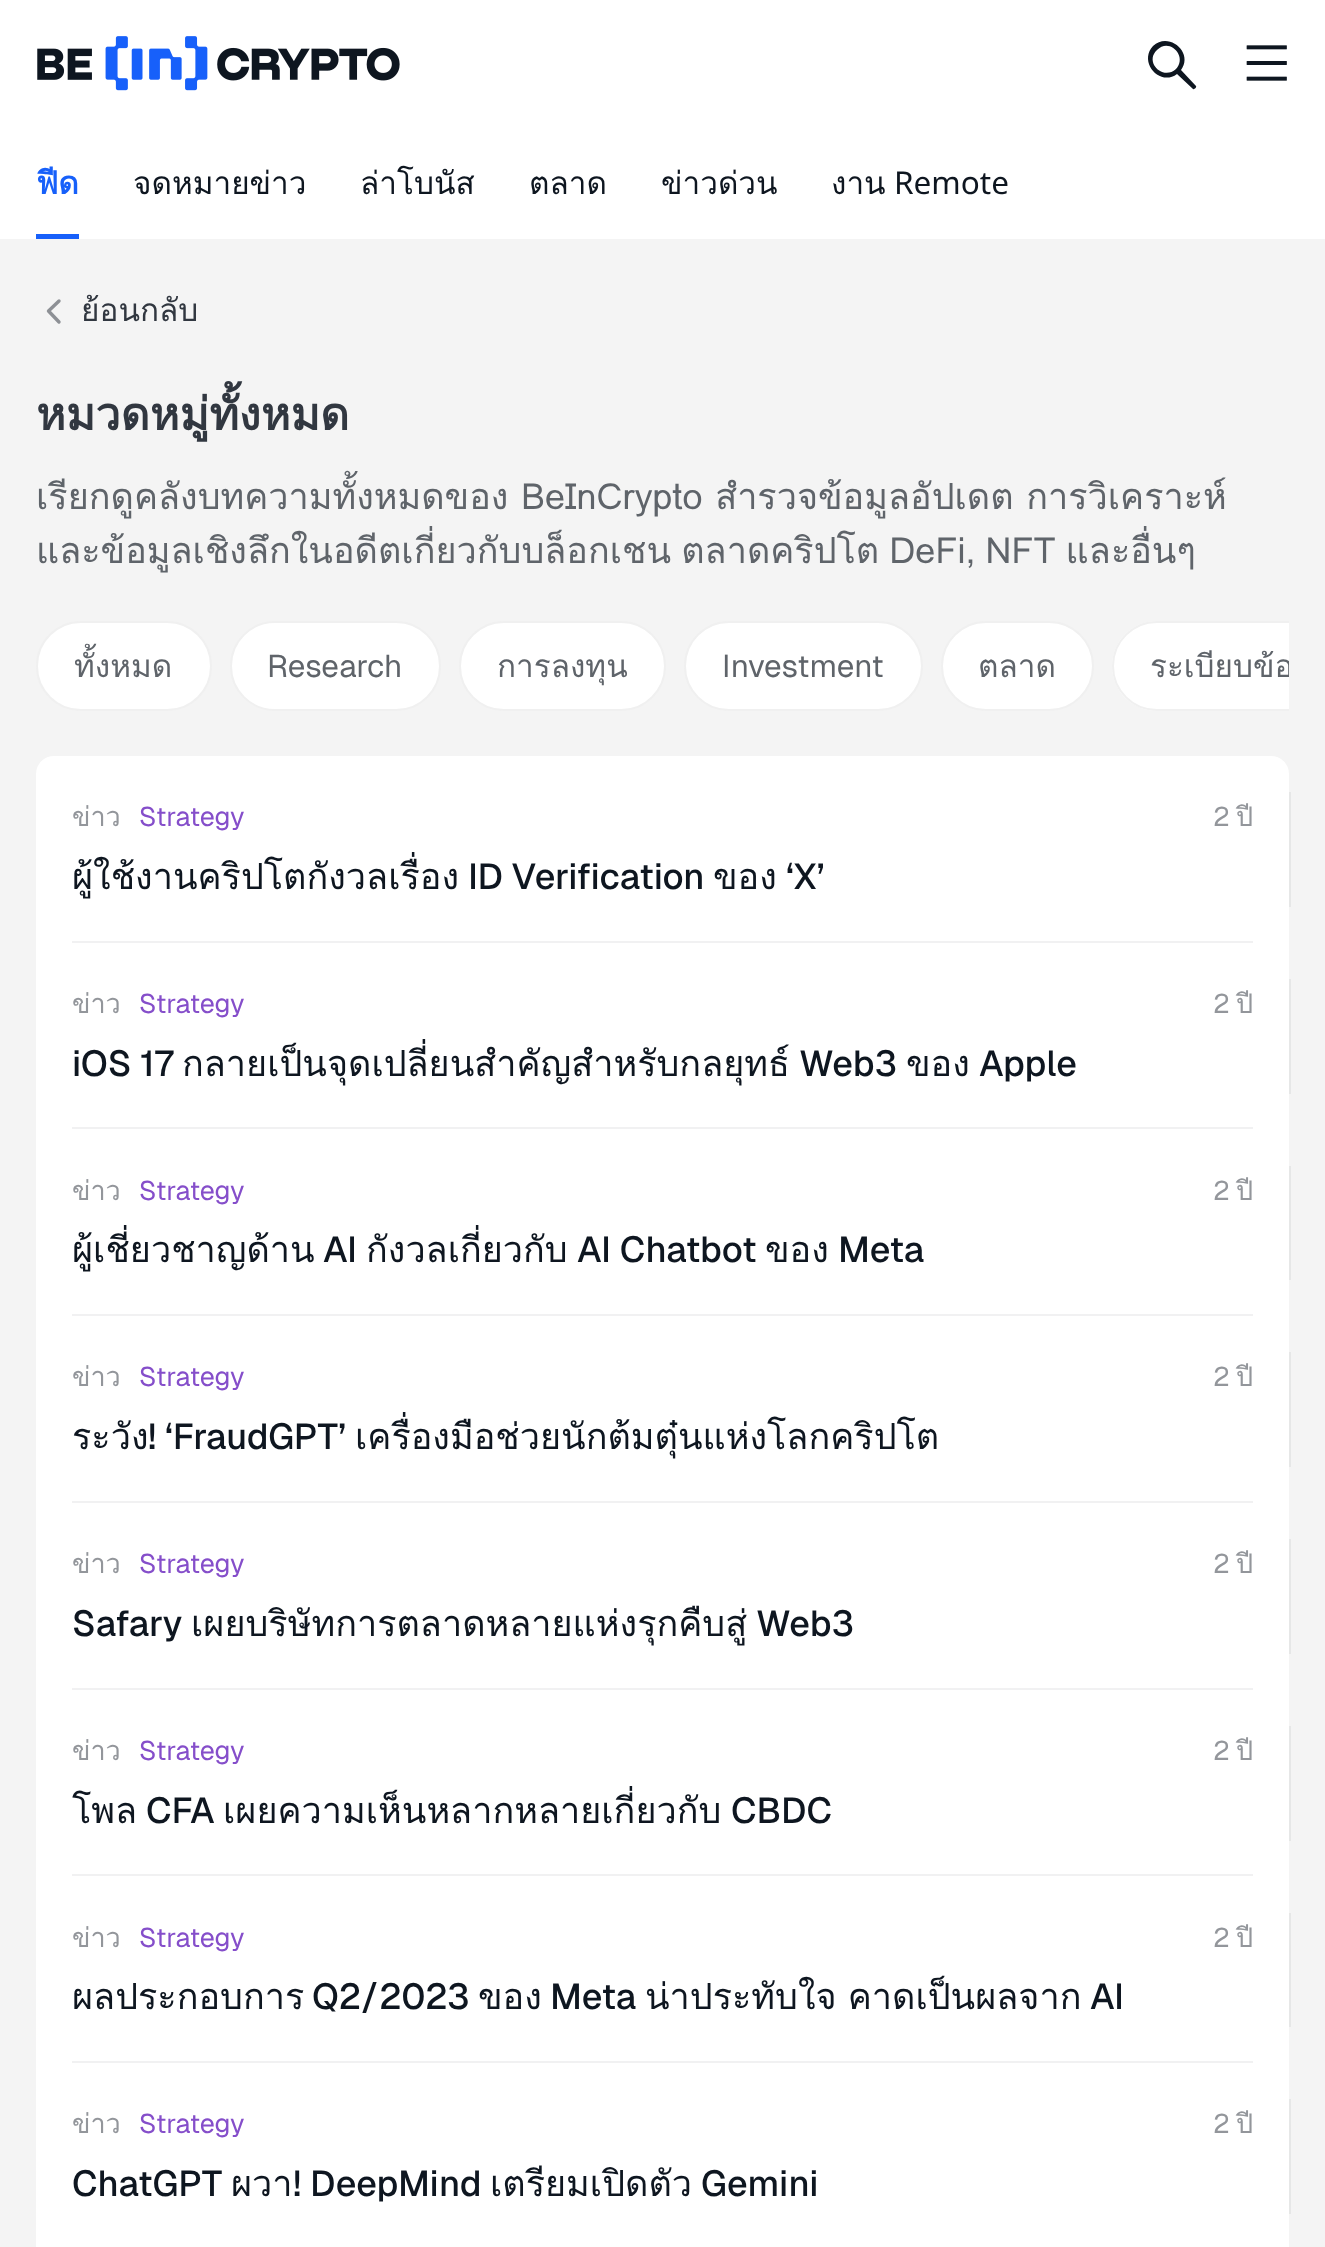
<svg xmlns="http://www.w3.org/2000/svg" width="1325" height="2247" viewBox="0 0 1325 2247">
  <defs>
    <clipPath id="clip1"><rect x="36" y="621" width="1253" height="90"/></clipPath>
    <clipPath id="clip2"><rect x="72" y="851" width="1181" height="54"/></clipPath>
    <clipPath id="clip3"><rect x="72" y="1224" width="1181" height="54"/></clipPath>
  </defs>
  <rect width="100%" height="100%" fill="rgb(244,244,244)"/>
  <rect x="0" y="0" width="1325" height="239" fill="rgb(255,255,255)"/>
  <image x="37" y="36" width="363" height="55" href="pic1.png"/>
  <path d="M1196 86L1181 70C1194 53 1169 31 1153 46C1138 62 1160 87 1177 74L1193 89C1194 90 1197 87 1196 86ZM1176 69C1163 81 1144 62 1157 50C1169 37 1188 56 1176 69Z" fill="rgb(14,22,32)"/>
  <image x="1246" y="45" width="41" height="36" href="pic2.png"/>
  <rect x="36" y="234" width="43" height="5" fill="rgb(23,96,250)"/>
  <text x="36" y="194" font-family="Loma" font-size="31.5" font-weight="bold" fill="rgb(23,96,250)">ฟีด</text>
  <g font-family="Loma" font-size="31.5" fill="rgb(14,22,32)">
    <text x="133" y="194">จดหมายข่าว</text>
    <text x="360" y="194">ล่าโบนัส</text>
    <text x="529" y="194">ตลาด</text>
    <text x="661" y="194">ข่าวด่วน</text>
    <text x="831" y="194">งาน</text>
  </g>
  <text x="894" y="194" font-family="Noto Sans" font-size="31.5" fill="rgb(14,22,32)">Remote</text>
  <path d="M59 301L48.5 311L59 322" fill="none" stroke="rgb(141,144,149)" stroke-width="3.4" stroke-linecap="round" stroke-linejoin="round"/>
  <text x="81" y="321" font-family="Loma" font-size="31.5" fill="rgb(49,55,64)">ย้อนกลับ</text>
  <text x="36" y="430" font-family="Loma" font-size="45" font-weight="bold" fill="rgb(49,55,64)">หมวดหมู่ทั้งหมด</text>
  <g font-family="Loma" font-size="36" fill="rgb(95,100,106)">
    <text>
      <tspan x="36" y="509" word-spacing="0.5">เรียกดูคลังบทความทั้งหมดของ BeInCrypto สำรวจข้อมูลอัปเดต การวิเคราะห์</tspan>
      <tspan x="36" y="563" word-spacing="-2">และข้อมูลเชิงลึกในอดีตเกี่ยวกับบล็อกเชน ตลาดคริปโต DeFi, NFT และอื่นๆ</tspan>
    </text>
  </g>
  <rect x="37" y="622" width="174" height="88" rx="44" fill="rgb(255,255,255)" stroke="rgb(240,240,240)" stroke-width="2"/>
  <text x="74" y="677" font-family="Loma" font-size="31.5" fill="rgb(95,100,106)">ทั้งหมด</text>
  <rect x="231" y="622" width="209" height="88" rx="44" fill="rgb(255,255,255)" stroke="rgb(240,240,240)" stroke-width="2"/>
  <text x="267" y="677" font-family="Geist" font-size="31.5" fill="rgb(95,100,106)">Research</text>
  <rect x="460" y="622" width="205" height="88" rx="44" fill="rgb(255,255,255)" stroke="rgb(240,240,240)" stroke-width="2"/>
  <text x="497" y="677" font-family="Loma" font-size="31.5" fill="rgb(95,100,106)">การลงทุน</text>
  <rect x="685" y="622" width="237" height="88" rx="44" fill="rgb(255,255,255)" stroke="rgb(240,240,240)" stroke-width="2"/>
  <text x="722" y="677" font-family="Geist" font-size="31.5" fill="rgb(95,100,106)">Investment</text>
  <rect x="942" y="622" width="151" height="88" rx="44" fill="rgb(255,255,255)" stroke="rgb(240,240,240)" stroke-width="2"/>
  <text x="978" y="677" font-family="Loma" font-size="31.5" fill="rgb(95,100,106)">ตลาด</text>
  <path d="M1157 621H1289V711H1157C1132 711 1112 691 1112 666C1112 641 1132 621 1157 621Z" fill="rgb(255,255,255)"/>
  <g clip-path="url(#clip1)">
    <rect x="1113" y="622" width="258" height="88" rx="44" fill="none" stroke="rgb(240,240,240)" stroke-width="2"/>
    <text x="1150" y="677" font-family="Loma" font-size="31.5" fill="rgb(95,100,106)">ระเบียบข้อ</text>
  </g>
  <rect x="36" y="756" width="1253" height="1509" rx="18" fill="rgb(255,255,255)"/>
  <text x="72" y="826" font-family="Loma" font-size="27" fill="rgb(147,150,155)">ข่าว</text>
  <text x="139" y="826" font-family="Geist" font-size="27" fill="rgb(133,78,202)">Strategy</text>
  <text x="1213" y="826" font-family="Geist" font-size="27" fill="rgb(147,150,155)">2</text>
  <text x="1236" y="826" font-family="Loma" font-size="27" fill="rgb(147,150,155)">ปี</text>
  <g clip-path="url(#clip2)">
    <text x="72" y="889" font-family="Loma" font-size="36" fill="rgb(14,22,32)">ผู้ใช้งานคริปโตกังวลเรื่อง</text>
  </g>
  <text x="468" y="889" font-family="Geist" font-size="36" font-weight="500" fill="rgb(14,22,32)">ID Verification</text>
  <text x="713" y="889" font-family="Loma" font-size="36" fill="rgb(14,22,32)">ของ</text>
  <text x="786" y="889" font-family="Geist" font-size="36" font-weight="500" fill="rgb(14,22,32)">‘X’</text>
  <rect x="72" y="941" width="1181" height="2" fill="rgb(241,241,242)"/>
  <rect x="1289" y="792" width="2" height="115" fill="rgb(230,231,231)"/>
  <text x="72" y="1013" font-family="Loma" font-size="27" fill="rgb(147,150,155)">ข่าว</text>
  <text x="139" y="1013" font-family="Geist" font-size="27" fill="rgb(133,78,202)">Strategy</text>
  <text x="1213" y="1013" font-family="Geist" font-size="27" fill="rgb(147,150,155)">2</text>
  <text x="1236" y="1013" font-family="Loma" font-size="27" fill="rgb(147,150,155)">ปี</text>
  <text x="72" y="1076" font-family="Geist" font-size="36" font-weight="500" fill="rgb(14,22,32)">iOS 17</text>
  <text x="182" y="1076" font-family="Loma" font-size="36" fill="rgb(14,22,32)">กลายเป็นจุดเปลี่ยนสำคัญสำหรับกลยุทธ์</text>
  <text x="799" y="1076" font-family="Geist" font-size="36" font-weight="500" fill="rgb(14,22,32)">Web3</text>
  <text x="906" y="1076" font-family="Loma" font-size="36" fill="rgb(14,22,32)">ของ</text>
  <text x="979" y="1076" font-family="Geist" font-size="36" font-weight="500" fill="rgb(14,22,32)">Apple</text>
  <rect x="72" y="1127" width="1181" height="2" fill="rgb(241,241,242)"/>
  <rect x="1289" y="979" width="2" height="115" fill="rgb(230,231,231)"/>
  <text x="72" y="1200" font-family="Loma" font-size="27" fill="rgb(147,150,155)">ข่าว</text>
  <text x="139" y="1200" font-family="Geist" font-size="27" fill="rgb(133,78,202)">Strategy</text>
  <text x="1213" y="1200" font-family="Geist" font-size="27" fill="rgb(147,150,155)">2</text>
  <text x="1236" y="1200" font-family="Loma" font-size="27" fill="rgb(147,150,155)">ปี</text>
  <g clip-path="url(#clip3)">
    <text x="72" y="1262" font-family="Loma" font-size="36" fill="rgb(14,22,32)">ผู้เชี่ยวชาญด้าน</text>
  </g>
  <text x="323" y="1262" font-family="Geist" font-size="36" font-weight="500" fill="rgb(14,22,32)">AI</text>
  <text x="366" y="1262" font-family="Loma" font-size="36" fill="rgb(14,22,32)">กังวลเกี่ยวกับ</text>
  <text x="577" y="1262" font-family="Geist" font-size="36" font-weight="500" fill="rgb(14,22,32)">AI Chatbot</text>
  <text x="765" y="1262" font-family="Loma" font-size="36" fill="rgb(14,22,32)">ของ</text>
  <text x="838" y="1262" font-family="Geist" font-size="36" font-weight="500" fill="rgb(14,22,32)">Meta</text>
  <rect x="72" y="1314" width="1181" height="2" fill="rgb(241,241,242)"/>
  <rect x="1289" y="1166" width="2" height="114" fill="rgb(230,231,231)"/>
  <text x="72" y="1386" font-family="Loma" font-size="27" fill="rgb(147,150,155)">ข่าว</text>
  <text x="139" y="1386" font-family="Geist" font-size="27" fill="rgb(133,78,202)">Strategy</text>
  <text x="1213" y="1386" font-family="Geist" font-size="27" fill="rgb(147,150,155)">2</text>
  <text x="1236" y="1386" font-family="Loma" font-size="27" fill="rgb(147,150,155)">ปี</text>
  <text x="72" y="1449" font-family="Loma" font-size="36" fill="rgb(14,22,32)">ระวัง</text>
  <text x="148" y="1449" font-family="Geist" font-size="36" font-weight="500" fill="rgb(14,22,32)">! ‘FraudGPT’</text>
  <text x="355" y="1449" font-family="Loma" font-size="36" fill="rgb(14,22,32)">เครื่องมือช่วยนักต้มตุ๋นแห่งโลกคริปโต</text>
  <rect x="72" y="1501" width="1181" height="2" fill="rgb(241,241,242)"/>
  <rect x="1289" y="1352" width="2" height="115" fill="rgb(230,231,231)"/>
  <text x="72" y="1573" font-family="Loma" font-size="27" fill="rgb(147,150,155)">ข่าว</text>
  <text x="139" y="1573" font-family="Geist" font-size="27" fill="rgb(133,78,202)">Strategy</text>
  <text x="1213" y="1573" font-family="Geist" font-size="27" fill="rgb(147,150,155)">2</text>
  <text x="1236" y="1573" font-family="Loma" font-size="27" fill="rgb(147,150,155)">ปี</text>
  <text x="72" y="1636" font-family="Geist" font-size="36" font-weight="500" fill="rgb(14,22,32)">Safary</text>
  <text x="191" y="1636" font-family="Loma" font-size="36" fill="rgb(14,22,32)">เผยบริษัทการตลาดหลายแห่งรุกคืบสู่</text>
  <text x="756" y="1636" font-family="Geist" font-size="36" font-weight="500" fill="rgb(14,22,32)">Web3</text>
  <rect x="72" y="1688" width="1181" height="2" fill="rgb(241,241,242)"/>
  <rect x="1289" y="1539" width="2" height="115" fill="rgb(230,231,231)"/>
  <text x="72" y="1760" font-family="Loma" font-size="27" fill="rgb(147,150,155)">ข่าว</text>
  <text x="139" y="1760" font-family="Geist" font-size="27" fill="rgb(133,78,202)">Strategy</text>
  <text x="1213" y="1760" font-family="Geist" font-size="27" fill="rgb(147,150,155)">2</text>
  <text x="1236" y="1760" font-family="Loma" font-size="27" fill="rgb(147,150,155)">ปี</text>
  <text x="72" y="1823" font-family="Loma" font-size="36" fill="rgb(14,22,32)">โพล</text>
  <text x="146" y="1823" font-family="Geist" font-size="36" font-weight="500" fill="rgb(14,22,32)">CFA</text>
  <text x="223" y="1823" font-family="Loma" font-size="36" fill="rgb(14,22,32)">เผยความเห็นหลากหลายเกี่ยวกับ</text>
  <text x="731" y="1823" font-family="Geist" font-size="36" font-weight="500" fill="rgb(14,22,32)">CBDC</text>
  <rect x="72" y="1874" width="1181" height="2" fill="rgb(241,241,242)"/>
  <rect x="1289" y="1726" width="2" height="115" fill="rgb(230,231,231)"/>
  <text x="72" y="1947" font-family="Loma" font-size="27" fill="rgb(147,150,155)">ข่าว</text>
  <text x="139" y="1947" font-family="Geist" font-size="27" fill="rgb(133,78,202)">Strategy</text>
  <text x="1213" y="1947" font-family="Geist" font-size="27" fill="rgb(147,150,155)">2</text>
  <text x="1236" y="1947" font-family="Loma" font-size="27" fill="rgb(147,150,155)">ปี</text>
  <text x="72" y="2009" font-family="Loma" font-size="36" fill="rgb(14,22,32)">ผลประกอบการ</text>
  <text x="312" y="2009" font-family="Geist" font-size="36" font-weight="500" fill="rgb(14,22,32)">Q2/2023</text>
  <text x="478" y="2009" font-family="Loma" font-size="36" fill="rgb(14,22,32)">ของ</text>
  <text x="550" y="2009" font-family="Geist" font-size="36" font-weight="500" fill="rgb(14,22,32)">Meta</text>
  <text x="645" y="2009" word-spacing="-1" font-family="Loma" font-size="36" fill="rgb(14,22,32)">น่าประทับใจ คาดเป็นผลจาก</text>
  <text x="1090" y="2009" font-family="Geist" font-size="36" font-weight="500" fill="rgb(14,22,32)">AI</text>
  <rect x="72" y="2061" width="1181" height="2" fill="rgb(241,241,242)"/>
  <rect x="1289" y="1913" width="2" height="114" fill="rgb(230,231,231)"/>
  <text x="72" y="2133" font-family="Loma" font-size="27" fill="rgb(147,150,155)">ข่าว</text>
  <text x="139" y="2133" font-family="Geist" font-size="27" fill="rgb(133,78,202)">Strategy</text>
  <text x="1213" y="2133" font-family="Geist" font-size="27" fill="rgb(147,150,155)">2</text>
  <text x="1236" y="2133" font-family="Loma" font-size="27" fill="rgb(147,150,155)">ปี</text>
  <text x="72" y="2196" font-family="Geist" font-size="36" font-weight="500" fill="rgb(14,22,32)">ChatGPT</text>
  <text x="231" y="2196" font-family="Loma" font-size="36" fill="rgb(14,22,32)">ผวา</text>
  <text x="293" y="2196" font-family="Geist" font-size="36" font-weight="500" fill="rgb(14,22,32)">! DeepMind</text>
  <text x="490" y="2196" font-family="Loma" font-size="36" fill="rgb(14,22,32)">เตรียมเปิดตัว</text>
  <text x="701" y="2196" font-family="Geist" font-size="36" font-weight="500" fill="rgb(14,22,32)">Gemini</text>
  <rect x="1289" y="2099" width="2" height="115" fill="rgb(230,231,231)"/>
</svg>
